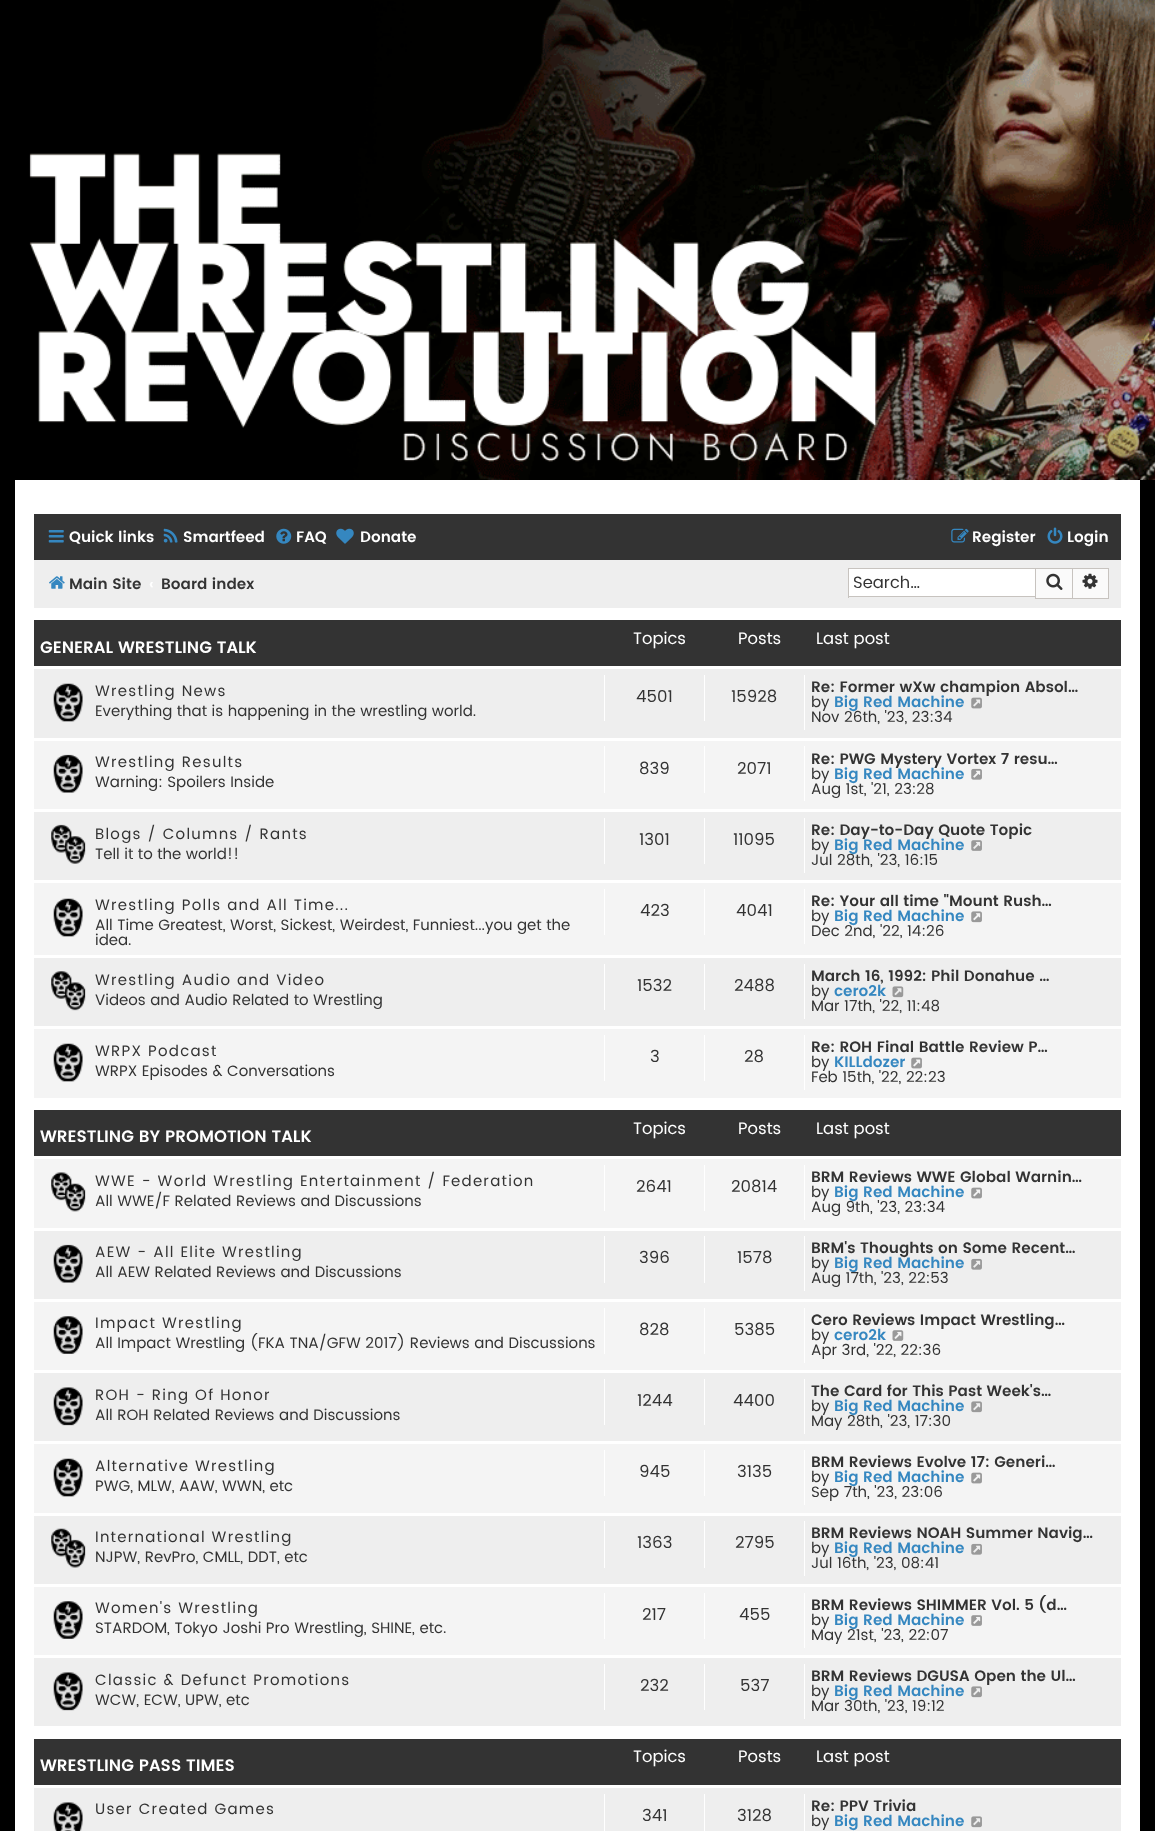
<svg xmlns="http://www.w3.org/2000/svg" width="1155" height="1831" viewBox="0 0 1155 1831">
  <rect width="100%" height="100%" fill="rgb(0,0,0)"/>
  <rect x="15" y="480" width="1125" height="1351" fill="rgb(255,255,255)"/>
  <image x="15" y="0" width="1140" height="480" href="pic1.png"/>
  <rect x="34" y="514" width="1087" height="46" fill="rgb(51,51,51)"/>
  <image x="48" y="530" width="16" height="13" href="pic2.png"/>
  <text x="69" y="542" font-family="Poppins" font-size="15.1" font-weight="600" fill="rgb(255,255,255)">Quick links</text>
  <image x="163" y="528" width="15" height="15" href="pic3.png"/>
  <text x="183" y="542" font-family="Poppins" font-size="15.1" font-weight="600" fill="rgb(255,255,255)">Smartfeed</text>
  <image x="276" y="528" width="16" height="16" href="pic4.png"/>
  <text x="296" y="542" font-family="Poppins" font-size="15.1" font-weight="600" fill="rgb(255,255,255)">FAQ</text>
  <image x="336" y="528" width="18" height="16" href="pic5.png"/>
  <text x="360" y="542" font-family="Poppins" font-size="15.1" font-weight="600" fill="rgb(255,255,255)">Donate</text>
  <image x="951" y="528" width="18" height="15" href="pic6.png"/>
  <text x="972" y="542" font-family="Poppins" font-size="15.1" font-weight="600" fill="rgb(255,255,255)">Register</text>
  <image x="1047" y="527" width="16" height="17" href="pic7.png"/>
  <text x="1067" y="542" font-family="Poppins" font-size="15.1" font-weight="600" fill="rgb(255,255,255)">Login</text>
  <rect x="34" y="560" width="1087" height="48" fill="rgb(238,238,238)"/>
  <image x="49" y="576" width="16" height="13" href="pic8.png"/>
  <text x="69" y="589" font-family="Poppins" font-size="15.1" font-weight="600" fill="rgb(51,51,51)">Main Site</text>
  <text x="149" y="589" font-family="Poppins" font-size="15.1" font-weight="600" fill="rgb(255,255,255)">‹</text>
  <text x="161" y="589" font-family="Poppins" font-size="15.1" font-weight="600" fill="rgb(51,51,51)">Board index</text>
  <rect x="849" y="569" width="186" height="27" fill="rgb(255,255,255)"/>
  <rect x="848" y="568" width="187" height="1" fill="rgb(199,195,191)"/>
  <rect x="848" y="596" width="187" height="1" fill="rgb(199,195,191)"/>
  <rect x="848" y="568" width="1" height="30" fill="rgb(199,195,191)"/>
  <text x="853" y="588" font-family="Poppins" font-size="16.5" fill="rgb(51,51,51)">Search…</text>
  <rect x="1035.5" y="568.5" width="37" height="30" fill="rgb(250,250,250)" stroke="rgb(199,195,191)"/>
  <image x="1046" y="573" width="17" height="17" href="pic9.png"/>
  <rect x="1073" y="569" width="35" height="29" fill="rgb(250,250,250)"/>
  <rect x="1073" y="568" width="36" height="1" fill="rgb(199,195,191)"/>
  <rect x="1108" y="568" width="1" height="31" fill="rgb(199,195,191)"/>
  <rect x="1073" y="598" width="36" height="1" fill="rgb(199,195,191)"/>
  <image x="1082" y="573" width="16" height="16" href="pic10.png"/>
  <rect x="34" y="620" width="1087" height="46" fill="rgb(51,51,51)"/>
  <text x="40" y="653" font-family="Poppins" font-size="16.5" font-weight="600" fill="rgb(255,255,255)">GENERAL WRESTLING TALK</text>
  <g font-family="Poppins" font-size="16.5" fill="rgb(255,255,255)">
    <text x="633" y="644">Topics</text>
    <text x="738" y="644">Posts</text>
    <text x="816" y="644">Last post</text>
  </g>
  <rect x="34" y="669" width="1087" height="357" fill="rgb(238,238,238)"/>
  <image x="53" y="683" width="30" height="39" href="pic11.png"/>
  <text x="95" y="696" font-family="Poppins" font-size="15.1" letter-spacing="1.25" fill="rgb(51,51,51)">Wrestling News</text>
  <text x="95" y="716" font-family="Poppins" font-size="15.1" fill="rgb(51,51,51)">Everything that is happening in the wrestling world.</text>
  <rect x="604" y="675" width="1" height="46" fill="rgb(255,255,255)"/>
  <text x="636" y="702" font-family="Poppins" font-size="16.5" fill="rgb(51,51,51)">4501</text>
  <rect x="704" y="675" width="1" height="46" fill="rgb(255,255,255)"/>
  <text x="731" y="702" font-family="Poppins" font-size="16.5" fill="rgb(51,51,51)">15928</text>
  <rect x="804" y="675" width="1" height="55" fill="rgb(255,255,255)"/>
  <text x="811" y="692" font-family="Poppins" font-size="15.1" font-weight="600" fill="rgb(51,51,51)">Re: Former wXw champion Absol…</text>
  <text x="811" y="707" font-family="Poppins" font-size="15.1" fill="rgb(51,51,51)">by</text>
  <text x="834" y="707" font-family="Poppins" font-size="15.1" font-weight="600" fill="rgb(53,135,192)">Big Red Machine</text>
  <image x="971" y="697" width="11" height="12" href="pic12.png"/>
  <text x="811" y="722" font-family="Poppins" font-size="15.1" fill="rgb(51,51,51)">Nov 26th, '23, 23:34</text>
  <rect x="34" y="741" width="1087" height="68" fill="rgb(244,244,244)"/>
  <rect x="34" y="738" width="1087" height="3" fill="rgb(255,255,255)"/>
  <image x="53" y="754" width="30" height="39" href="pic13.png"/>
  <text x="95" y="767" font-family="Poppins" font-size="15.1" letter-spacing="1.25" fill="rgb(51,51,51)">Wrestling Results</text>
  <text x="95" y="787" font-family="Poppins" font-size="15.1" fill="rgb(51,51,51)">Warning: Spoilers Inside</text>
  <rect x="604" y="746" width="1" height="47" fill="rgb(255,255,255)"/>
  <text x="639" y="774" font-family="Poppins" font-size="16.5" fill="rgb(51,51,51)">839</text>
  <rect x="704" y="746" width="1" height="47" fill="rgb(255,255,255)"/>
  <text x="737" y="774" font-family="Poppins" font-size="16.5" fill="rgb(51,51,51)">2071</text>
  <rect x="804" y="746" width="1" height="55" fill="rgb(255,255,255)"/>
  <text x="811" y="764" font-family="Poppins" font-size="15.1" font-weight="600" fill="rgb(51,51,51)">Re: PWG Mystery Vortex 7 resu…</text>
  <text x="811" y="779" font-family="Poppins" font-size="15.1" fill="rgb(51,51,51)">by</text>
  <text x="834" y="779" font-family="Poppins" font-size="15.1" font-weight="600" fill="rgb(53,135,192)">Big Red Machine</text>
  <image x="971" y="768" width="11" height="12" href="pic14.png"/>
  <text x="811" y="794" font-family="Poppins" font-size="15.1" fill="rgb(51,51,51)">Aug 1st, '21, 23:28</text>
  <rect x="34" y="809" width="1087" height="3" fill="rgb(255,255,255)"/>
  <image x="51" y="824" width="35" height="40" href="pic15.png"/>
  <text x="95" y="839" font-family="Poppins" font-size="15.1" letter-spacing="1.25" fill="rgb(51,51,51)">Blogs / Columns / Rants</text>
  <text x="95" y="859" font-family="Poppins" font-size="15.1" fill="rgb(51,51,51)">Tell it to the world!!</text>
  <rect x="604" y="818" width="1" height="46" fill="rgb(255,255,255)"/>
  <text x="639" y="845" font-family="Poppins" font-size="16.5" fill="rgb(51,51,51)">1301</text>
  <rect x="704" y="818" width="1" height="46" fill="rgb(255,255,255)"/>
  <text x="733" y="845" font-family="Poppins" font-size="16.5" fill="rgb(51,51,51)">11095</text>
  <rect x="804" y="818" width="1" height="55" fill="rgb(255,255,255)"/>
  <text x="811" y="835" font-family="Poppins" font-size="15.1" font-weight="600" fill="rgb(51,51,51)">Re: Day-to-Day Quote Topic</text>
  <text x="811" y="850" font-family="Poppins" font-size="15.1" fill="rgb(51,51,51)">by</text>
  <text x="834" y="850" font-family="Poppins" font-size="15.1" font-weight="600" fill="rgb(53,135,192)">Big Red Machine</text>
  <image x="971" y="840" width="11" height="11" href="pic16.png"/>
  <text x="811" y="865" font-family="Poppins" font-size="15.1" fill="rgb(51,51,51)">Jul 28th, '23, 16:15</text>
  <rect x="34" y="883" width="1087" height="72" fill="rgb(244,244,244)"/>
  <rect x="34" y="880" width="1087" height="3" fill="rgb(255,255,255)"/>
  <image x="53" y="898" width="30" height="39" href="pic17.png"/>
  <text x="95" y="910" font-family="Poppins" font-size="15.1" letter-spacing="1.25" fill="rgb(51,51,51)">Wrestling Polls and All Time...</text>
  <g font-family="Poppins" font-size="15.1" fill="rgb(51,51,51)">
    <text>
      <tspan x="95" y="930">All Time Greatest, Worst, Sickest, Weirdest, Funniest...you get the</tspan>
      <tspan x="95" y="945">idea.</tspan>
    </text>
  </g>
  <rect x="604" y="889" width="1" height="46" fill="rgb(255,255,255)"/>
  <text x="640" y="916" font-family="Poppins" font-size="16.5" fill="rgb(51,51,51)">423</text>
  <rect x="704" y="889" width="1" height="46" fill="rgb(255,255,255)"/>
  <text x="736" y="916" font-family="Poppins" font-size="16.5" fill="rgb(51,51,51)">4041</text>
  <rect x="804" y="889" width="1" height="55" fill="rgb(255,255,255)"/>
  <text x="811" y="906" font-family="Poppins" font-size="15.1" font-weight="600" fill="rgb(51,51,51)">Re: Your all time "Mount Rush…</text>
  <text x="811" y="921" font-family="Poppins" font-size="15.1" fill="rgb(51,51,51)">by</text>
  <text x="834" y="921" font-family="Poppins" font-size="15.1" font-weight="600" fill="rgb(53,135,192)">Big Red Machine</text>
  <image x="971" y="911" width="11" height="12" href="pic18.png"/>
  <text x="811" y="936" font-family="Poppins" font-size="15.1" fill="rgb(51,51,51)">Dec 2nd, '22, 14:26</text>
  <rect x="34" y="955" width="1087" height="3" fill="rgb(255,255,255)"/>
  <image x="51" y="971" width="35" height="40" href="pic19.png"/>
  <text x="95" y="985" font-family="Poppins" font-size="15.1" letter-spacing="1.25" fill="rgb(51,51,51)">Wrestling Audio and Video</text>
  <text x="95" y="1005" font-family="Poppins" font-size="15.1" fill="rgb(51,51,51)">Videos and Audio Related to Wrestling</text>
  <rect x="604" y="964" width="1" height="46" fill="rgb(255,255,255)"/>
  <text x="637" y="991" font-family="Poppins" font-size="16.5" fill="rgb(51,51,51)">1532</text>
  <rect x="704" y="964" width="1" height="46" fill="rgb(255,255,255)"/>
  <text x="734" y="991" font-family="Poppins" font-size="16.5" fill="rgb(51,51,51)">2488</text>
  <rect x="804" y="964" width="1" height="55" fill="rgb(255,255,255)"/>
  <text x="811" y="981" font-family="Poppins" font-size="15.1" font-weight="600" fill="rgb(51,51,51)">March 16, 1992: Phil Donahue …</text>
  <text x="811" y="996" font-family="Poppins" font-size="15.1" fill="rgb(51,51,51)">by</text>
  <text x="834" y="996" font-family="Poppins" font-size="15.1" font-weight="600" fill="rgb(53,135,192)">cero2k</text>
  <image x="892" y="986" width="12" height="12" href="pic20.png"/>
  <text x="811" y="1011" font-family="Poppins" font-size="15.1" fill="rgb(51,51,51)">Mar 17th, '22, 11:48</text>
  <rect x="34" y="1029" width="1087" height="69" fill="rgb(244,244,244)"/>
  <image x="53" y="1043" width="30" height="39" href="pic17.png"/>
  <text x="95" y="1056" font-family="Poppins" font-size="15.1" letter-spacing="1.25" fill="rgb(51,51,51)">WRPX Podcast</text>
  <text x="95" y="1076" font-family="Poppins" font-size="15.1" fill="rgb(51,51,51)">WRPX Episodes &amp; Conversations</text>
  <rect x="604" y="1035" width="1" height="46" fill="rgb(255,255,255)"/>
  <text x="650" y="1062" font-family="Poppins" font-size="16.5" fill="rgb(51,51,51)">3</text>
  <rect x="704" y="1035" width="1" height="46" fill="rgb(255,255,255)"/>
  <text x="744" y="1062" font-family="Poppins" font-size="16.5" fill="rgb(51,51,51)">28</text>
  <rect x="804" y="1035" width="1" height="55" fill="rgb(255,255,255)"/>
  <text x="811" y="1052" font-family="Poppins" font-size="15.1" font-weight="600" fill="rgb(51,51,51)">Re: ROH Final Battle Review P…</text>
  <text x="811" y="1067" font-family="Poppins" font-size="15.1" fill="rgb(51,51,51)">by</text>
  <text x="834" y="1067" font-family="Poppins" font-size="15.1" font-weight="600" fill="rgb(53,135,192)">KILLdozer</text>
  <image x="911" y="1057" width="11" height="12" href="pic21.png"/>
  <text x="811" y="1082" font-family="Poppins" font-size="15.1" fill="rgb(51,51,51)">Feb 15th, '22, 22:23</text>
  <rect x="34" y="1110" width="1087" height="46" fill="rgb(51,51,51)"/>
  <text x="40" y="1142" font-family="Poppins" font-size="16.5" font-weight="600" fill="rgb(255,255,255)">WRESTLING BY PROMOTION TALK</text>
  <g font-family="Poppins" font-size="16.5" fill="rgb(255,255,255)">
    <text x="633" y="1134">Topics</text>
    <text x="738" y="1134">Posts</text>
    <text x="816" y="1134">Last post</text>
  </g>
  <rect x="34" y="1231" width="1087" height="495" fill="rgb(238,238,238)"/>
  <rect x="34" y="1159" width="1087" height="69" fill="rgb(244,244,244)"/>
  <image x="51" y="1172" width="35" height="40" href="pic22.png"/>
  <text x="95" y="1186" font-family="Poppins" font-size="15.1" letter-spacing="1.25" fill="rgb(51,51,51)">WWE - World Wrestling Entertainment / Federation</text>
  <text x="95" y="1206" font-family="Poppins" font-size="15.1" fill="rgb(51,51,51)">All WWE/F Related Reviews and Discussions</text>
  <rect x="604" y="1165" width="1" height="46" fill="rgb(255,255,255)"/>
  <text x="636" y="1192" font-family="Poppins" font-size="16.5" fill="rgb(51,51,51)">2641</text>
  <rect x="704" y="1165" width="1" height="46" fill="rgb(255,255,255)"/>
  <text x="731" y="1192" font-family="Poppins" font-size="16.5" fill="rgb(51,51,51)">20814</text>
  <rect x="804" y="1165" width="1" height="55" fill="rgb(255,255,255)"/>
  <text x="811" y="1182" font-family="Poppins" font-size="15.1" font-weight="600" fill="rgb(51,51,51)">BRM Reviews WWE Global Warnin…</text>
  <text x="811" y="1197" font-family="Poppins" font-size="15.1" fill="rgb(51,51,51)">by</text>
  <text x="834" y="1197" font-family="Poppins" font-size="15.1" font-weight="600" fill="rgb(53,135,192)">Big Red Machine</text>
  <image x="971" y="1187" width="11" height="12" href="pic21.png"/>
  <text x="811" y="1212" font-family="Poppins" font-size="15.1" fill="rgb(51,51,51)">Aug 9th, '23, 23:34</text>
  <image x="53" y="1244" width="30" height="39" href="pic23.png"/>
  <text x="95" y="1257" font-family="Poppins" font-size="15.1" letter-spacing="1.25" fill="rgb(51,51,51)">AEW - All Elite Wrestling</text>
  <text x="95" y="1277" font-family="Poppins" font-size="15.1" fill="rgb(51,51,51)">All AEW Related Reviews and Discussions</text>
  <rect x="604" y="1236" width="1" height="47" fill="rgb(255,255,255)"/>
  <text x="639" y="1263" font-family="Poppins" font-size="16.5" fill="rgb(51,51,51)">396</text>
  <rect x="704" y="1236" width="1" height="47" fill="rgb(255,255,255)"/>
  <text x="737" y="1263" font-family="Poppins" font-size="16.5" fill="rgb(51,51,51)">1578</text>
  <rect x="804" y="1236" width="1" height="55" fill="rgb(255,255,255)"/>
  <text x="811" y="1253" font-family="Poppins" font-size="15.1" font-weight="600" fill="rgb(51,51,51)">BRM's Thoughts on Some Recent…</text>
  <text x="811" y="1268" font-family="Poppins" font-size="15.1" fill="rgb(51,51,51)">by</text>
  <text x="834" y="1268" font-family="Poppins" font-size="15.1" font-weight="600" fill="rgb(53,135,192)">Big Red Machine</text>
  <image x="971" y="1258" width="11" height="12" href="pic24.png"/>
  <text x="811" y="1283" font-family="Poppins" font-size="15.1" fill="rgb(51,51,51)">Aug 17th, '23, 22:53</text>
  <rect x="34" y="1302" width="1087" height="68" fill="rgb(244,244,244)"/>
  <rect x="34" y="1299" width="1087" height="3" fill="rgb(255,255,255)"/>
  <image x="53" y="1316" width="30" height="38" href="pic25.png"/>
  <text x="95" y="1328" font-family="Poppins" font-size="15.1" letter-spacing="1.25" fill="rgb(51,51,51)">Impact Wrestling</text>
  <text x="95" y="1348" font-family="Poppins" font-size="15.1" fill="rgb(51,51,51)">All Impact Wrestling (FKA TNA/GFW 2017) Reviews and Discussions</text>
  <rect x="604" y="1308" width="1" height="46" fill="rgb(255,255,255)"/>
  <text x="639" y="1335" font-family="Poppins" font-size="16.5" fill="rgb(51,51,51)">828</text>
  <rect x="704" y="1308" width="1" height="46" fill="rgb(255,255,255)"/>
  <text x="734" y="1335" font-family="Poppins" font-size="16.5" fill="rgb(51,51,51)">5385</text>
  <rect x="804" y="1308" width="1" height="55" fill="rgb(255,255,255)"/>
  <text x="811" y="1325" font-family="Poppins" font-size="15.1" font-weight="600" fill="rgb(51,51,51)">Cero Reviews Impact Wrestling…</text>
  <text x="811" y="1340" font-family="Poppins" font-size="15.1" fill="rgb(51,51,51)">by</text>
  <text x="834" y="1340" font-family="Poppins" font-size="15.1" font-weight="600" fill="rgb(53,135,192)">cero2k</text>
  <image x="892" y="1330" width="12" height="11" href="pic26.png"/>
  <text x="811" y="1355" font-family="Poppins" font-size="15.1" fill="rgb(51,51,51)">Apr 3rd, '22, 22:36</text>
  <rect x="34" y="1370" width="1087" height="3" fill="rgb(255,255,255)"/>
  <image x="53" y="1387" width="30" height="39" href="pic27.png"/>
  <text x="95" y="1400" font-family="Poppins" font-size="15.1" letter-spacing="1.25" fill="rgb(51,51,51)">ROH - Ring Of Honor</text>
  <text x="95" y="1420" font-family="Poppins" font-size="15.1" fill="rgb(51,51,51)">All ROH Related Reviews and Discussions</text>
  <rect x="604" y="1379" width="1" height="46" fill="rgb(255,255,255)"/>
  <text x="637" y="1406" font-family="Poppins" font-size="16.5" fill="rgb(51,51,51)">1244</text>
  <rect x="704" y="1379" width="1" height="46" fill="rgb(255,255,255)"/>
  <text x="733" y="1406" font-family="Poppins" font-size="16.5" fill="rgb(51,51,51)">4400</text>
  <rect x="804" y="1379" width="1" height="55" fill="rgb(255,255,255)"/>
  <text x="811" y="1396" font-family="Poppins" font-size="15.1" font-weight="600" fill="rgb(51,51,51)">The Card for This Past Week's…</text>
  <text x="811" y="1411" font-family="Poppins" font-size="15.1" fill="rgb(51,51,51)">by</text>
  <text x="834" y="1411" font-family="Poppins" font-size="15.1" font-weight="600" fill="rgb(53,135,192)">Big Red Machine</text>
  <image x="971" y="1401" width="11" height="12" href="pic28.png"/>
  <text x="811" y="1426" font-family="Poppins" font-size="15.1" fill="rgb(51,51,51)">May 28th, '23, 17:30</text>
  <rect x="34" y="1444" width="1087" height="69" fill="rgb(244,244,244)"/>
  <rect x="34" y="1441" width="1087" height="3" fill="rgb(255,255,255)"/>
  <image x="53" y="1458" width="30" height="39" href="pic17.png"/>
  <text x="95" y="1471" font-family="Poppins" font-size="15.1" letter-spacing="1.25" fill="rgb(51,51,51)">Alternative Wrestling</text>
  <text x="95" y="1491" font-family="Poppins" font-size="15.1" fill="rgb(51,51,51)">PWG, MLW, AAW, WWN, etc</text>
  <rect x="604" y="1450" width="1" height="46" fill="rgb(255,255,255)"/>
  <text x="639" y="1477" font-family="Poppins" font-size="16.5" fill="rgb(51,51,51)">945</text>
  <rect x="704" y="1450" width="1" height="46" fill="rgb(255,255,255)"/>
  <text x="737" y="1477" font-family="Poppins" font-size="16.5" fill="rgb(51,51,51)">3135</text>
  <rect x="804" y="1450" width="1" height="55" fill="rgb(255,255,255)"/>
  <text x="811" y="1467" font-family="Poppins" font-size="15.1" font-weight="600" fill="rgb(51,51,51)">BRM Reviews Evolve 17: Generi…</text>
  <text x="811" y="1482" font-family="Poppins" font-size="15.1" fill="rgb(51,51,51)">by</text>
  <text x="834" y="1482" font-family="Poppins" font-size="15.1" font-weight="600" fill="rgb(53,135,192)">Big Red Machine</text>
  <image x="971" y="1472" width="11" height="12" href="pic21.png"/>
  <text x="811" y="1497" font-family="Poppins" font-size="15.1" fill="rgb(51,51,51)">Sep 7th, '23, 23:06</text>
  <rect x="34" y="1513" width="1087" height="3" fill="rgb(255,255,255)"/>
  <image x="51" y="1528" width="35" height="40" href="pic29.png"/>
  <text x="95" y="1542" font-family="Poppins" font-size="15.1" letter-spacing="1.25" fill="rgb(51,51,51)">International Wrestling</text>
  <text x="95" y="1562" font-family="Poppins" font-size="15.1" fill="rgb(51,51,51)">NJPW, RevPro, CMLL, DDT, etc</text>
  <rect x="604" y="1521" width="1" height="47" fill="rgb(255,255,255)"/>
  <text x="637" y="1548" font-family="Poppins" font-size="16.5" fill="rgb(51,51,51)">1363</text>
  <rect x="704" y="1521" width="1" height="47" fill="rgb(255,255,255)"/>
  <text x="735" y="1548" font-family="Poppins" font-size="16.5" fill="rgb(51,51,51)">2795</text>
  <rect x="804" y="1521" width="1" height="55" fill="rgb(255,255,255)"/>
  <text x="811" y="1538" font-family="Poppins" font-size="15.1" font-weight="600" fill="rgb(51,51,51)">BRM Reviews NOAH Summer Navig…</text>
  <text x="811" y="1553" font-family="Poppins" font-size="15.1" fill="rgb(51,51,51)">by</text>
  <text x="834" y="1553" font-family="Poppins" font-size="15.1" font-weight="600" fill="rgb(53,135,192)">Big Red Machine</text>
  <image x="971" y="1543" width="11" height="12" href="pic24.png"/>
  <text x="811" y="1568" font-family="Poppins" font-size="15.1" fill="rgb(51,51,51)">Jul 16th, '23, 08:41</text>
  <rect x="34" y="1587" width="1087" height="68" fill="rgb(244,244,244)"/>
  <rect x="34" y="1584" width="1087" height="3" fill="rgb(255,255,255)"/>
  <image x="53" y="1601" width="30" height="38" href="pic25.png"/>
  <text x="95" y="1613" font-family="Poppins" font-size="15.1" letter-spacing="1.25" fill="rgb(51,51,51)">Women's Wrestling</text>
  <text x="95" y="1633" font-family="Poppins" font-size="15.1" fill="rgb(51,51,51)">STARDOM, Tokyo Joshi Pro Wrestling, SHINE, etc.</text>
  <rect x="604" y="1593" width="1" height="46" fill="rgb(255,255,255)"/>
  <text x="642" y="1620" font-family="Poppins" font-size="16.5" fill="rgb(51,51,51)">217</text>
  <rect x="704" y="1593" width="1" height="46" fill="rgb(255,255,255)"/>
  <text x="739" y="1620" font-family="Poppins" font-size="16.5" fill="rgb(51,51,51)">455</text>
  <rect x="804" y="1593" width="1" height="55" fill="rgb(255,255,255)"/>
  <text x="811" y="1610" font-family="Poppins" font-size="15.1" font-weight="600" fill="rgb(51,51,51)">BRM Reviews SHIMMER Vol. 5 (d…</text>
  <text x="811" y="1625" font-family="Poppins" font-size="15.1" fill="rgb(51,51,51)">by</text>
  <text x="834" y="1625" font-family="Poppins" font-size="15.1" font-weight="600" fill="rgb(53,135,192)">Big Red Machine</text>
  <image x="971" y="1615" width="11" height="11" href="pic30.png"/>
  <text x="811" y="1640" font-family="Poppins" font-size="15.1" fill="rgb(51,51,51)">May 21st, '23, 22:07</text>
  <rect x="34" y="1655" width="1087" height="3" fill="rgb(255,255,255)"/>
  <image x="53" y="1672" width="30" height="39" href="pic27.png"/>
  <text x="95" y="1685" font-family="Poppins" font-size="15.1" letter-spacing="1.25" fill="rgb(51,51,51)">Classic &amp; Defunct Promotions</text>
  <text x="95" y="1705" font-family="Poppins" font-size="15.1" fill="rgb(51,51,51)">WCW, ECW, UPW, etc</text>
  <rect x="604" y="1664" width="1" height="46" fill="rgb(255,255,255)"/>
  <text x="640" y="1691" font-family="Poppins" font-size="16.5" fill="rgb(51,51,51)">232</text>
  <rect x="704" y="1664" width="1" height="46" fill="rgb(255,255,255)"/>
  <text x="740" y="1691" font-family="Poppins" font-size="16.5" fill="rgb(51,51,51)">537</text>
  <rect x="804" y="1664" width="1" height="55" fill="rgb(255,255,255)"/>
  <text x="811" y="1681" font-family="Poppins" font-size="15.1" font-weight="600" fill="rgb(51,51,51)">BRM Reviews DGUSA Open the Ul…</text>
  <text x="811" y="1696" font-family="Poppins" font-size="15.1" fill="rgb(51,51,51)">by</text>
  <text x="834" y="1696" font-family="Poppins" font-size="15.1" font-weight="600" fill="rgb(53,135,192)">Big Red Machine</text>
  <image x="971" y="1686" width="11" height="12" href="pic28.png"/>
  <text x="811" y="1711" font-family="Poppins" font-size="15.1" fill="rgb(51,51,51)">Mar 30th, '23, 19:12</text>
  <rect x="34" y="1739" width="1087" height="46" fill="rgb(51,51,51)"/>
  <text x="40" y="1771" font-family="Poppins" font-size="16.5" font-weight="600" fill="rgb(255,255,255)">WRESTLING PASS TIMES</text>
  <g font-family="Poppins" font-size="16.5" fill="rgb(255,255,255)">
    <text x="633" y="1762">Topics</text>
    <text x="738" y="1762">Posts</text>
    <text x="816" y="1762">Last post</text>
  </g>
  <rect x="34" y="1788" width="1087" height="43" fill="rgb(238,238,238)"/>
  <image x="53" y="1802" width="30" height="29" href="pic31.png"/>
  <text x="95" y="1814" font-family="Poppins" font-size="15.1" letter-spacing="1.25" fill="rgb(51,51,51)">User Created Games</text>
  <rect x="604" y="1794" width="1" height="37" fill="rgb(255,255,255)"/>
  <text x="642" y="1821" font-family="Poppins" font-size="16.5" fill="rgb(51,51,51)">341</text>
  <rect x="704" y="1794" width="1" height="37" fill="rgb(255,255,255)"/>
  <text x="737" y="1821" font-family="Poppins" font-size="16.5" fill="rgb(51,51,51)">3128</text>
  <rect x="804" y="1794" width="1" height="37" fill="rgb(255,255,255)"/>
  <text x="811" y="1811" font-family="Poppins" font-size="15.1" font-weight="600" fill="rgb(51,51,51)">Re: PPV Trivia</text>
  <text x="811" y="1826" font-family="Poppins" font-size="15.1" fill="rgb(51,51,51)">by</text>
  <text x="834" y="1826" font-family="Poppins" font-size="15.1" font-weight="600" fill="rgb(53,135,192)">Big Red Machine</text>
  <image x="971" y="1816" width="11" height="12" href="pic28.png"/>
</svg>
